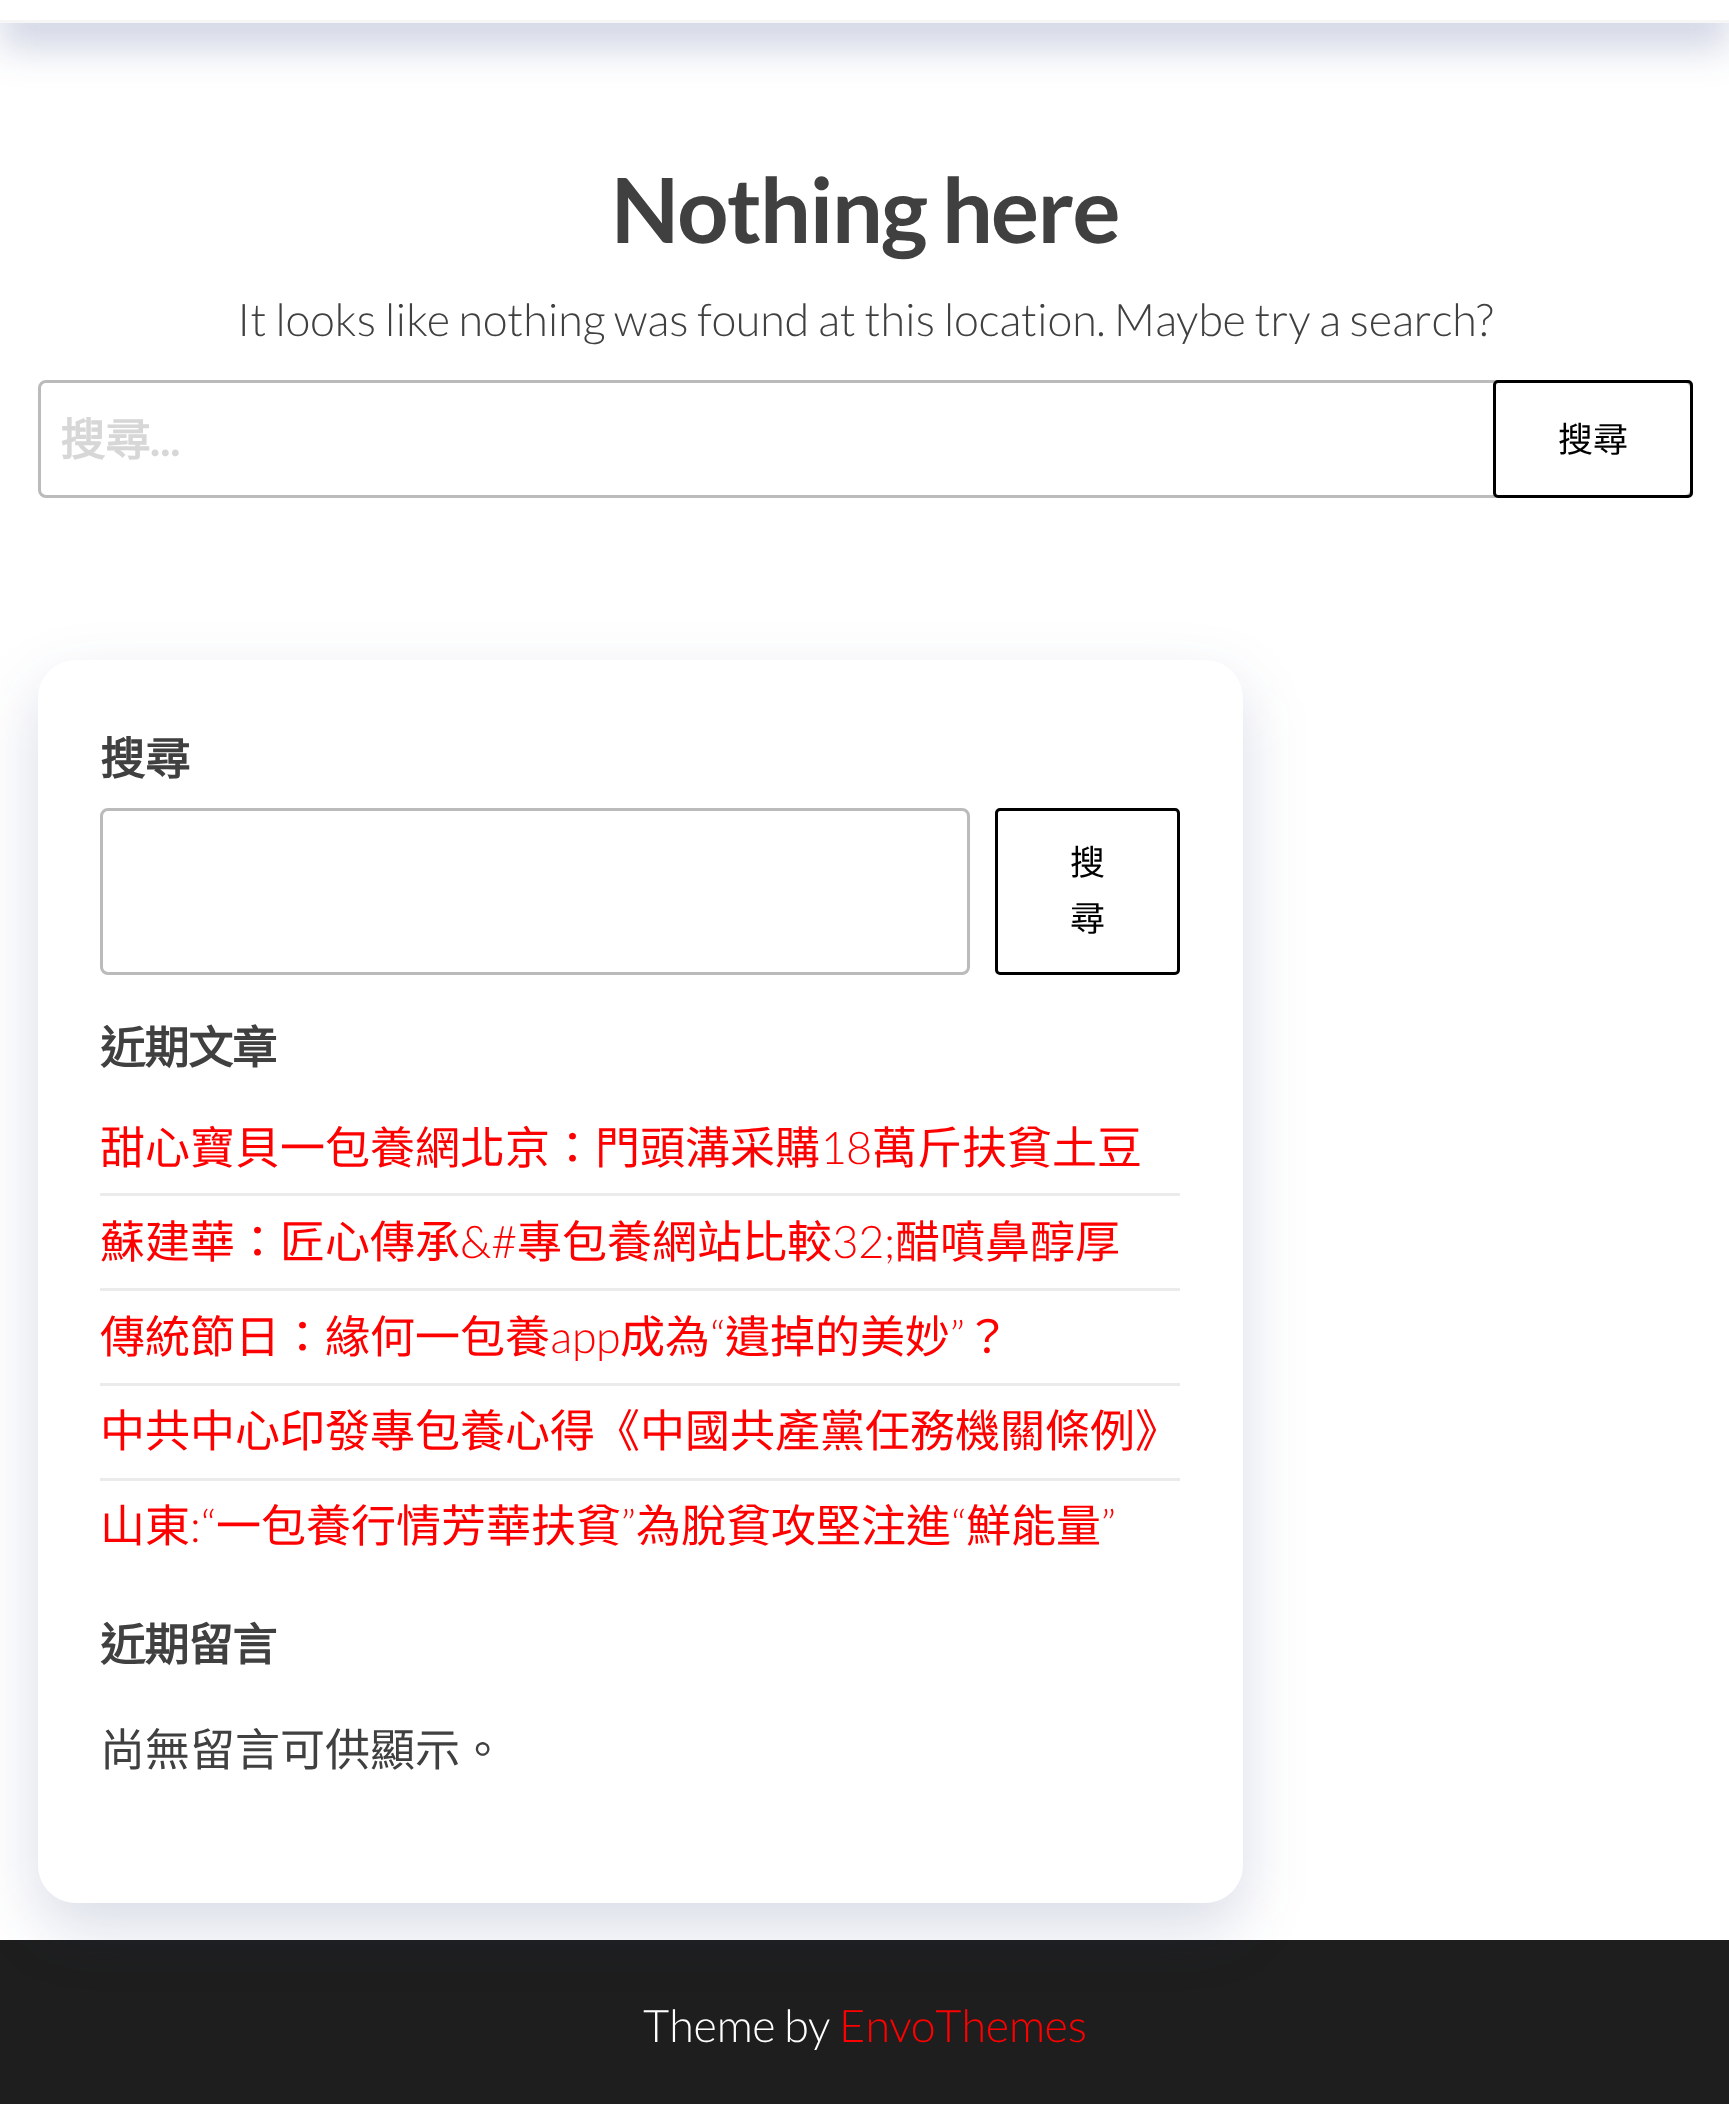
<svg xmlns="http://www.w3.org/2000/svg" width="1729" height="2104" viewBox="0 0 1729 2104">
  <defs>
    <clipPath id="clip1"><path d="M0 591H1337V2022H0ZM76 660H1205C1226 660 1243 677 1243 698V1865C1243 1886 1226 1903 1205 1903H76C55 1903 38 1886 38 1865V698C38 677 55 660 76 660Z" clip-rule="evenodd"/></clipPath>
  </defs>
  <rect width="100%" height="100%" fill="rgb(255,255,255)"/>
  <rect x="0" y="-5" width="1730" height="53" fill="rgba(25,45,120,0.2)" filter="blur(19px)"/>
  <rect x="0" y="0" width="1729" height="20" fill="rgb(255,255,255)"/>
  <rect x="0" y="20" width="1729" height="3" fill="rgb(246,246,246)"/>
  <text x="611" y="243" font-family="Lato" font-size="90" font-weight="bold" letter-spacing="-1.75" fill="rgb(64,64,64)">Nothing here</text>
  <text x="237" y="336" font-family="Lato" font-size="45" font-weight="300" fill="rgb(64,64,64)">It looks like nothing was found at this location. Maybe try a search?</text>
  <rect x="39.5" y="381.5" width="1652" height="115" rx="6.5" fill="none" stroke="rgb(187,187,187)" stroke-width="3"/>
  <text x="60" y="456" font-family="Noto Sans CJK TC" font-size="45" font-weight="bold" fill="rgb(215,215,215)">搜尋</text>
  <text x="150" y="456" font-family="Lato" font-size="45" font-weight="bold" fill="rgb(215,215,215)">...</text>
  <rect x="1494.5" y="381.5" width="197" height="115" rx="3.5" fill="none" stroke="rgb(0,0,0)" stroke-width="3"/>
  <text x="1558" y="452" font-family="Noto Sans CJK TC" font-size="35" fill="rgb(0,0,0)">搜尋</text>
  <rect x="0" y="1940" width="1729" height="164" fill="rgb(30,30,30)"/>
  <g clip-path="url(#clip1)">
    <rect x="38" y="685" width="1205" height="1243" rx="38" fill="rgba(28,45,113,0.17)" filter="blur(31px)"/>
  </g>
  <text x="100" y="775" font-family="Noto Sans CJK TC" font-size="45" font-weight="bold" fill="rgb(64,64,64)">搜尋</text>
  <rect x="101.5" y="809.5" width="867" height="164" rx="6.5" fill="none" stroke="rgb(187,187,187)" stroke-width="3"/>
  <rect x="996.5" y="809.5" width="182" height="164" rx="3.5" fill="none" stroke="rgb(0,0,0)" stroke-width="3"/>
  <g font-family="Noto Sans CJK TC" font-size="35" fill="rgb(0,0,0)">
    <text>
      <tspan x="1070" y="875">搜</tspan>
      <tspan x="1070" y="931">尋</tspan>
    </text>
  </g>
  <text x="100" y="1064" font-family="Noto Sans CJK TC" font-size="45" font-weight="bold" letter-spacing="-1" fill="rgb(64,64,64)">近期文章</text>
  <rect x="100" y="1193" width="1080" height="3" fill="rgb(235,235,235)"/>
  <text x="100" y="1164" font-family="Noto Sans CJK TC" font-size="45" fill="rgb(255,0,0)">甜心寶貝一包養網北京：門頭溝采購</text>
  <text x="820" y="1164" font-family="Lato" font-size="45" font-weight="300" fill="rgb(255,0,0)">18</text>
  <text x="872" y="1164" font-family="Noto Sans CJK TC" font-size="45" fill="rgb(255,0,0)">萬斤扶貧土豆</text>
  <rect x="100" y="1288" width="1080" height="3" fill="rgb(235,235,235)"/>
  <text x="100" y="1258" font-family="Noto Sans CJK TC" font-size="45" fill="rgb(255,0,0)">蘇建華：匠心傳承</text>
  <text x="460" y="1258" font-family="Lato" font-size="45" font-weight="300" fill="rgb(255,0,0)">&amp;#</text>
  <text x="517" y="1258" font-family="Noto Sans CJK TC" font-size="45" fill="rgb(255,0,0)">專包養網站比較</text>
  <text x="832" y="1258" font-family="Lato" font-size="45" font-weight="300" fill="rgb(255,0,0)">32;</text>
  <text x="895" y="1258" font-family="Noto Sans CJK TC" font-size="45" fill="rgb(255,0,0)">醋噴鼻醇厚</text>
  <rect x="100" y="1383" width="1080" height="3" fill="rgb(235,235,235)"/>
  <g font-family="Noto Sans CJK TC" font-size="45" fill="rgb(255,0,0)">
    <text x="100" y="1353">傳統節日：緣何一包養</text>
    <text x="620" y="1353">成為</text>
  </g>
  <text x="710" y="1353" font-family="Lato" font-size="45" font-weight="300" fill="rgb(255,0,0)">“</text>
  <text x="725" y="1353" font-family="Noto Sans CJK TC" font-size="45" fill="rgb(255,0,0)">遺掉的美妙</text>
  <text x="950" y="1353" font-family="Lato" font-size="45" font-weight="300" fill="rgb(255,0,0)">”</text>
  <text x="965" y="1353" font-family="Noto Sans CJK TC" font-size="45" fill="rgb(255,0,0)">？</text>
  <text x="550" y="1353" font-family="Lato" font-size="45" font-weight="300" fill="rgb(255,0,0)">app</text>
  <rect x="100" y="1478" width="1080" height="3" fill="rgb(235,235,235)"/>
  <g font-family="Noto Sans CJK TC" font-size="45" fill="rgb(255,0,0)">
    <text x="100" y="1447">中共中心印發專包養心得《中國共產黨任務機關條例》</text>
    <text x="100" y="1542">山東</text>
  </g>
  <text x="190" y="1542" font-family="Lato" font-size="45" font-weight="300" fill="rgb(255,0,0)">:“</text>
  <text x="216" y="1542" font-family="Noto Sans CJK TC" font-size="45" fill="rgb(255,0,0)">一包養行情芳華扶貧</text>
  <text x="621" y="1542" font-family="Lato" font-size="45" font-weight="300" fill="rgb(255,0,0)">”</text>
  <text x="636" y="1542" font-family="Noto Sans CJK TC" font-size="45" fill="rgb(255,0,0)">為脫貧攻堅注進</text>
  <text x="951" y="1542" font-family="Lato" font-size="45" font-weight="300" fill="rgb(255,0,0)">“</text>
  <text x="966" y="1542" font-family="Noto Sans CJK TC" font-size="45" fill="rgb(255,0,0)">鮮能量</text>
  <text x="1101" y="1542" font-family="Lato" font-size="45" font-weight="300" fill="rgb(255,0,0)">”</text>
  <text x="100" y="1661" font-family="Noto Sans CJK TC" font-size="45" font-weight="bold" letter-spacing="-1" fill="rgb(64,64,64)">近期留言</text>
  <text x="100" y="1766" font-family="Noto Sans CJK TC" font-size="45" fill="rgb(64,64,64)">尚無留言可供顯示。</text>
  <text x="643" y="2042" font-family="Lato" font-size="45" font-weight="300" fill="rgb(255,255,255)">Theme by</text>
  <text x="839" y="2042" font-family="Lato" font-size="45" font-weight="300" fill="rgb(255,0,0)">EnvoThemes</text>
</svg>
